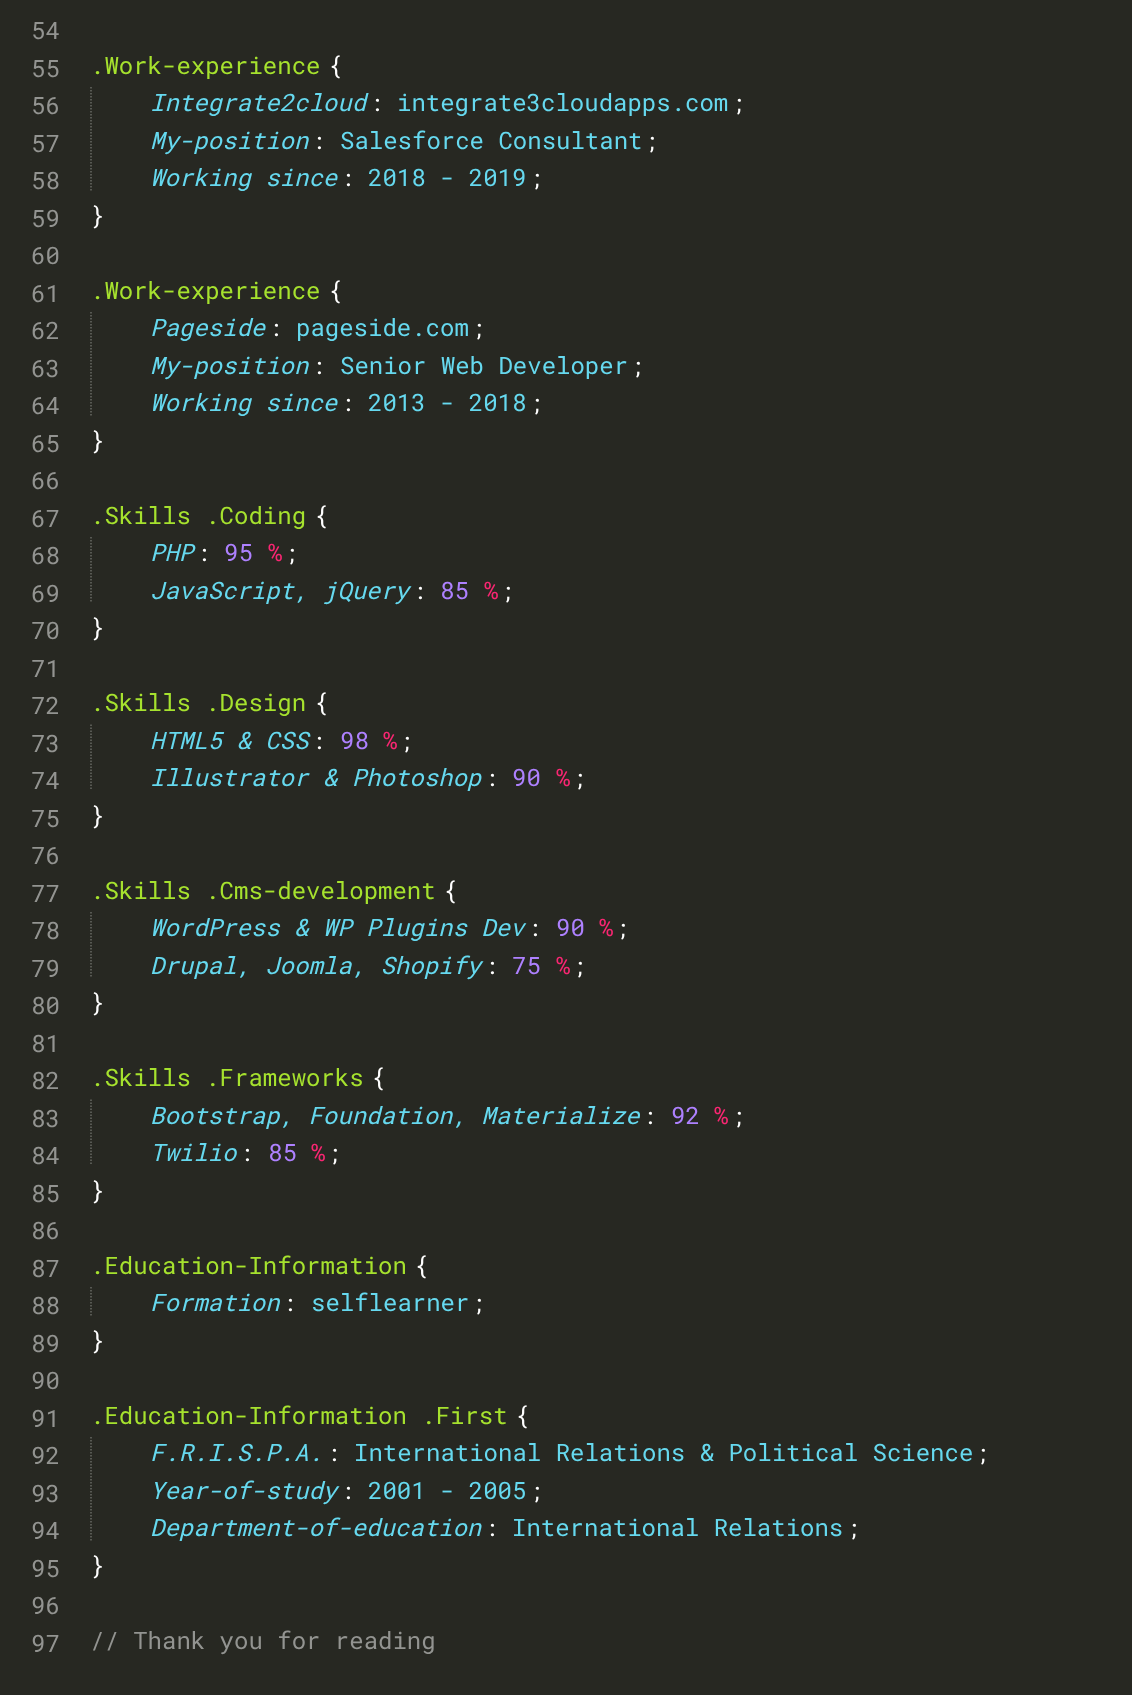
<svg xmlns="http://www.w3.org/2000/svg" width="1132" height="1695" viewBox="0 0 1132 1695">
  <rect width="100%" height="100%" fill="rgb(39,40,34)"/>
  <g font-family="Roboto Mono" font-size="24" fill="rgb(147,148,145)">
    <text>
      <tspan x="31" y="39">54</tspan>
      <tspan x="31" y="77">55</tspan>
      <tspan x="31" y="114">56</tspan>
      <tspan x="31" y="152">57</tspan>
      <tspan x="31" y="189">58</tspan>
      <tspan x="31" y="227">59</tspan>
      <tspan x="31" y="264">60</tspan>
      <tspan x="31" y="302">61</tspan>
      <tspan x="31" y="339">62</tspan>
      <tspan x="31" y="377">63</tspan>
      <tspan x="31" y="414">64</tspan>
      <tspan x="31" y="452">65</tspan>
      <tspan x="31" y="489">66</tspan>
      <tspan x="31" y="527">67</tspan>
      <tspan x="31" y="564">68</tspan>
      <tspan x="31" y="602">69</tspan>
      <tspan x="31" y="639">70</tspan>
      <tspan x="31" y="677">71</tspan>
      <tspan x="31" y="714">72</tspan>
      <tspan x="31" y="752">73</tspan>
      <tspan x="31" y="789">74</tspan>
      <tspan x="31" y="827">75</tspan>
      <tspan x="31" y="864">76</tspan>
      <tspan x="31" y="902">77</tspan>
      <tspan x="31" y="939">78</tspan>
      <tspan x="31" y="977">79</tspan>
      <tspan x="31" y="1014">80</tspan>
      <tspan x="31" y="1052">81</tspan>
      <tspan x="31" y="1089">82</tspan>
      <tspan x="31" y="1127">83</tspan>
      <tspan x="31" y="1164">84</tspan>
      <tspan x="31" y="1202">85</tspan>
      <tspan x="31" y="1239">86</tspan>
      <tspan x="31" y="1277">87</tspan>
      <tspan x="31" y="1314">88</tspan>
      <tspan x="31" y="1352">89</tspan>
      <tspan x="31" y="1389">90</tspan>
      <tspan x="31" y="1427">91</tspan>
      <tspan x="31" y="1464">92</tspan>
      <tspan x="31" y="1502">93</tspan>
      <tspan x="31" y="1539">94</tspan>
      <tspan x="31" y="1577">95</tspan>
      <tspan x="31" y="1614">96</tspan>
      <tspan x="31" y="1652">97</tspan>
    </text>
  </g>
  <text x="90" y="74" font-family="Roboto Mono" font-size="24" fill="rgb(166,226,46)">.Work-experience</text>
  <text x="328" y="74" font-family="Roboto Mono" font-size="24" fill="rgb(255,255,255)">{</text>
  <path d="M91 87V190.5" fill="none" stroke="rgb(104,105,100)" stroke-width="1.5" stroke-dasharray="1.5 1.5"/>
  <text x="150" y="111" font-family="Roboto Mono" font-size="24" font-style="italic" fill="rgb(102,217,239)">Integrate2cloud</text>
  <text x="370" y="111" font-family="Roboto Mono" font-size="22" fill="rgb(255,255,255)">:</text>
  <text x="397" y="111" font-family="Roboto Mono" font-size="24" fill="rgb(102,217,239)">integrate3cloudapps.com</text>
  <text x="732" y="111" font-family="Roboto Mono" font-size="22" fill="rgb(255,255,255)">;</text>
  <text x="150" y="149" font-family="Roboto Mono" font-size="24" font-style="italic" fill="rgb(102,217,239)">My-position</text>
  <text x="312" y="149" font-family="Roboto Mono" font-size="22" fill="rgb(255,255,255)">:</text>
  <text x="340" y="149" font-family="Roboto Mono" font-size="24" fill="rgb(102,217,239)">Salesforce Consultant</text>
  <text x="645" y="149" font-family="Roboto Mono" font-size="22" fill="rgb(255,255,255)">;</text>
  <text x="150" y="186" font-family="Roboto Mono" font-size="24" font-style="italic" fill="rgb(102,217,239)">Working since</text>
  <text x="341" y="186" font-family="Roboto Mono" font-size="22" fill="rgb(255,255,255)">:</text>
  <text x="368" y="186" font-family="Roboto Mono" font-size="24" fill="rgb(102,217,239)">2018 - 2019</text>
  <text x="530" y="186" font-family="Roboto Mono" font-size="22" fill="rgb(255,255,255)">;</text>
  <text x="90" y="224" font-family="Roboto Mono" font-size="24" fill="rgb(255,255,255)">}</text>
  <text x="90" y="299" font-family="Roboto Mono" font-size="24" fill="rgb(166,226,46)">.Work-experience</text>
  <text x="328" y="299" font-family="Roboto Mono" font-size="24" fill="rgb(255,255,255)">{</text>
  <path d="M91 312V415.5" fill="none" stroke="rgb(104,105,100)" stroke-width="1.5" stroke-dasharray="1.5 1.5"/>
  <text x="150" y="336" font-family="Roboto Mono" font-size="24" font-style="italic" fill="rgb(102,217,239)">Pageside</text>
  <text x="269" y="336" font-family="Roboto Mono" font-size="22" fill="rgb(255,255,255)">:</text>
  <text x="296" y="336" font-family="Roboto Mono" font-size="24" fill="rgb(102,217,239)">pageside.com</text>
  <text x="472" y="336" font-family="Roboto Mono" font-size="22" fill="rgb(255,255,255)">;</text>
  <text x="150" y="374" font-family="Roboto Mono" font-size="24" font-style="italic" fill="rgb(102,217,239)">My-position</text>
  <text x="312" y="374" font-family="Roboto Mono" font-size="22" fill="rgb(255,255,255)">:</text>
  <text x="340" y="374" font-family="Roboto Mono" font-size="24" fill="rgb(102,217,239)">Senior Web Developer</text>
  <text x="631" y="374" font-family="Roboto Mono" font-size="22" fill="rgb(255,255,255)">;</text>
  <text x="150" y="411" font-family="Roboto Mono" font-size="24" font-style="italic" fill="rgb(102,217,239)">Working since</text>
  <text x="341" y="411" font-family="Roboto Mono" font-size="22" fill="rgb(255,255,255)">:</text>
  <text x="368" y="411" font-family="Roboto Mono" font-size="24" fill="rgb(102,217,239)">2013 - 2018</text>
  <text x="530" y="411" font-family="Roboto Mono" font-size="22" fill="rgb(255,255,255)">;</text>
  <text x="90" y="449" font-family="Roboto Mono" font-size="24" fill="rgb(255,255,255)">}</text>
  <text x="90" y="524" font-family="Roboto Mono" font-size="24" fill="rgb(166,226,46)">.Skills .Coding</text>
  <text x="314" y="524" font-family="Roboto Mono" font-size="24" fill="rgb(255,255,255)">{</text>
  <path d="M91 537V603" fill="none" stroke="rgb(104,105,100)" stroke-width="1.5" stroke-dasharray="1.5 1.5"/>
  <text x="150" y="561" font-family="Roboto Mono" font-size="24" font-style="italic" fill="rgb(102,217,239)">PHP</text>
  <text x="197" y="561" font-family="Roboto Mono" font-size="22" fill="rgb(255,255,255)">:</text>
  <text x="224" y="561" font-family="Roboto Mono" font-size="24" fill="rgb(174,129,255)">95</text>
  <text x="268" y="561" font-family="Roboto Mono" font-size="24" fill="rgb(249,38,114)">%</text>
  <text x="285" y="561" font-family="Roboto Mono" font-size="22" fill="rgb(255,255,255)">;</text>
  <text x="150" y="599" font-family="Roboto Mono" font-size="24" font-style="italic" fill="rgb(102,217,239)">JavaScript, jQuery</text>
  <text x="413" y="599" font-family="Roboto Mono" font-size="22" fill="rgb(255,255,255)">:</text>
  <text x="440" y="599" font-family="Roboto Mono" font-size="24" fill="rgb(174,129,255)">85</text>
  <text x="484" y="599" font-family="Roboto Mono" font-size="24" fill="rgb(249,38,114)">%</text>
  <text x="501" y="599" font-family="Roboto Mono" font-size="22" fill="rgb(255,255,255)">;</text>
  <text x="90" y="636" font-family="Roboto Mono" font-size="24" fill="rgb(255,255,255)">}</text>
  <text x="90" y="711" font-family="Roboto Mono" font-size="24" fill="rgb(166,226,46)">.Skills .Design</text>
  <text x="314" y="711" font-family="Roboto Mono" font-size="24" fill="rgb(255,255,255)">{</text>
  <path d="M91 724.5V790.5" fill="none" stroke="rgb(104,105,100)" stroke-width="1.5" stroke-dasharray="1.5 1.5"/>
  <text x="150" y="749" font-family="Roboto Mono" font-size="24" font-style="italic" fill="rgb(102,217,239)">HTML5 &amp; CSS</text>
  <text x="312" y="749" font-family="Roboto Mono" font-size="22" fill="rgb(255,255,255)">:</text>
  <text x="340" y="749" font-family="Roboto Mono" font-size="24" fill="rgb(174,129,255)">98</text>
  <text x="383" y="749" font-family="Roboto Mono" font-size="24" fill="rgb(249,38,114)">%</text>
  <text x="400" y="749" font-family="Roboto Mono" font-size="22" fill="rgb(255,255,255)">;</text>
  <text x="150" y="786" font-family="Roboto Mono" font-size="24" font-style="italic" fill="rgb(102,217,239)">Illustrator &amp; Photoshop</text>
  <text x="485" y="786" font-family="Roboto Mono" font-size="22" fill="rgb(255,255,255)">:</text>
  <text x="512" y="786" font-family="Roboto Mono" font-size="24" fill="rgb(174,129,255)">90</text>
  <text x="556" y="786" font-family="Roboto Mono" font-size="24" fill="rgb(249,38,114)">%</text>
  <text x="573" y="786" font-family="Roboto Mono" font-size="22" fill="rgb(255,255,255)">;</text>
  <text x="90" y="824" font-family="Roboto Mono" font-size="24" fill="rgb(255,255,255)">}</text>
  <text x="90" y="899" font-family="Roboto Mono" font-size="24" fill="rgb(166,226,46)">.Skills .Cms-development</text>
  <text x="443" y="899" font-family="Roboto Mono" font-size="24" fill="rgb(255,255,255)">{</text>
  <path d="M91 912V978" fill="none" stroke="rgb(104,105,100)" stroke-width="1.5" stroke-dasharray="1.5 1.5"/>
  <text x="150" y="936" font-family="Roboto Mono" font-size="24" font-style="italic" fill="rgb(102,217,239)">WordPress &amp; WP Plugins Dev</text>
  <text x="528" y="936" font-family="Roboto Mono" font-size="22" fill="rgb(255,255,255)">:</text>
  <text x="556" y="936" font-family="Roboto Mono" font-size="24" fill="rgb(174,129,255)">90</text>
  <text x="599" y="936" font-family="Roboto Mono" font-size="24" fill="rgb(249,38,114)">%</text>
  <text x="616" y="936" font-family="Roboto Mono" font-size="22" fill="rgb(255,255,255)">;</text>
  <text x="150" y="974" font-family="Roboto Mono" font-size="24" font-style="italic" fill="rgb(102,217,239)">Drupal, Joomla, Shopify</text>
  <text x="485" y="974" font-family="Roboto Mono" font-size="22" fill="rgb(255,255,255)">:</text>
  <text x="512" y="974" font-family="Roboto Mono" font-size="24" fill="rgb(174,129,255)">75</text>
  <text x="556" y="974" font-family="Roboto Mono" font-size="24" fill="rgb(249,38,114)">%</text>
  <text x="573" y="974" font-family="Roboto Mono" font-size="22" fill="rgb(255,255,255)">;</text>
  <text x="90" y="1011" font-family="Roboto Mono" font-size="24" fill="rgb(255,255,255)">}</text>
  <text x="90" y="1086" font-family="Roboto Mono" font-size="24" fill="rgb(166,226,46)">.Skills .Frameworks</text>
  <text x="371" y="1086" font-family="Roboto Mono" font-size="24" fill="rgb(255,255,255)">{</text>
  <path d="M91 1099.5V1165.5" fill="none" stroke="rgb(104,105,100)" stroke-width="1.5" stroke-dasharray="1.5 1.5"/>
  <text x="150" y="1124" font-family="Roboto Mono" font-size="24" font-style="italic" fill="rgb(102,217,239)">Bootstrap, Foundation, Materialize</text>
  <text x="643" y="1124" font-family="Roboto Mono" font-size="22" fill="rgb(255,255,255)">:</text>
  <text x="671" y="1124" font-family="Roboto Mono" font-size="24" fill="rgb(174,129,255)">92</text>
  <text x="714" y="1124" font-family="Roboto Mono" font-size="24" fill="rgb(249,38,114)">%</text>
  <text x="732" y="1124" font-family="Roboto Mono" font-size="22" fill="rgb(255,255,255)">;</text>
  <text x="150" y="1161" font-family="Roboto Mono" font-size="24" font-style="italic" fill="rgb(102,217,239)">Twilio</text>
  <text x="240" y="1161" font-family="Roboto Mono" font-size="22" fill="rgb(255,255,255)">:</text>
  <text x="268" y="1161" font-family="Roboto Mono" font-size="24" fill="rgb(174,129,255)">85</text>
  <text x="311" y="1161" font-family="Roboto Mono" font-size="24" fill="rgb(249,38,114)">%</text>
  <text x="328" y="1161" font-family="Roboto Mono" font-size="22" fill="rgb(255,255,255)">;</text>
  <text x="90" y="1199" font-family="Roboto Mono" font-size="24" fill="rgb(255,255,255)">}</text>
  <text x="90" y="1274" font-family="Roboto Mono" font-size="24" fill="rgb(166,226,46)">.Education-Information</text>
  <text x="414" y="1274" font-family="Roboto Mono" font-size="24" fill="rgb(255,255,255)">{</text>
  <path d="M91 1287V1315.5" fill="none" stroke="rgb(104,105,100)" stroke-width="1.5" stroke-dasharray="1.5 1.5"/>
  <text x="150" y="1311" font-family="Roboto Mono" font-size="24" font-style="italic" fill="rgb(102,217,239)">Formation</text>
  <text x="283" y="1311" font-family="Roboto Mono" font-size="22" fill="rgb(255,255,255)">:</text>
  <text x="311" y="1311" font-family="Roboto Mono" font-size="24" fill="rgb(102,217,239)">selflearner</text>
  <text x="472" y="1311" font-family="Roboto Mono" font-size="22" fill="rgb(255,255,255)">;</text>
  <text x="90" y="1349" font-family="Roboto Mono" font-size="24" fill="rgb(255,255,255)">}</text>
  <text x="90" y="1424" font-family="Roboto Mono" font-size="24" fill="rgb(166,226,46)">.Education-Information .First</text>
  <text x="515" y="1424" font-family="Roboto Mono" font-size="24" fill="rgb(255,255,255)">{</text>
  <path d="M91 1437V1540.5" fill="none" stroke="rgb(104,105,100)" stroke-width="1.5" stroke-dasharray="1.5 1.5"/>
  <text x="150" y="1461" font-family="Roboto Mono" font-size="24" font-style="italic" fill="rgb(102,217,239)">F.R.I.S.P.A.</text>
  <text x="327" y="1461" font-family="Roboto Mono" font-size="22" fill="rgb(255,255,255)">:</text>
  <text x="354" y="1461" font-family="Roboto Mono" font-size="24" fill="rgb(102,217,239)">International Relations &amp; Political Science</text>
  <text x="976" y="1461" font-family="Roboto Mono" font-size="22" fill="rgb(255,255,255)">;</text>
  <text x="150" y="1499" font-family="Roboto Mono" font-size="24" font-style="italic" fill="rgb(102,217,239)">Year-of-study</text>
  <text x="341" y="1499" font-family="Roboto Mono" font-size="22" fill="rgb(255,255,255)">:</text>
  <text x="368" y="1499" font-family="Roboto Mono" font-size="24" fill="rgb(102,217,239)">2001 - 2005</text>
  <text x="530" y="1499" font-family="Roboto Mono" font-size="22" fill="rgb(255,255,255)">;</text>
  <text x="150" y="1536" font-family="Roboto Mono" font-size="24" font-style="italic" fill="rgb(102,217,239)">Department-of-education</text>
  <text x="485" y="1536" font-family="Roboto Mono" font-size="22" fill="rgb(255,255,255)">:</text>
  <text x="512" y="1536" font-family="Roboto Mono" font-size="24" fill="rgb(102,217,239)">International Relations</text>
  <text x="847" y="1536" font-family="Roboto Mono" font-size="22" fill="rgb(255,255,255)">;</text>
  <text x="90" y="1574" font-family="Roboto Mono" font-size="24" fill="rgb(255,255,255)">}</text>
  <text x="90" y="1649" font-family="Roboto Mono" font-size="24" fill="rgb(147,148,145)">// Thank you for reading</text>
</svg>
